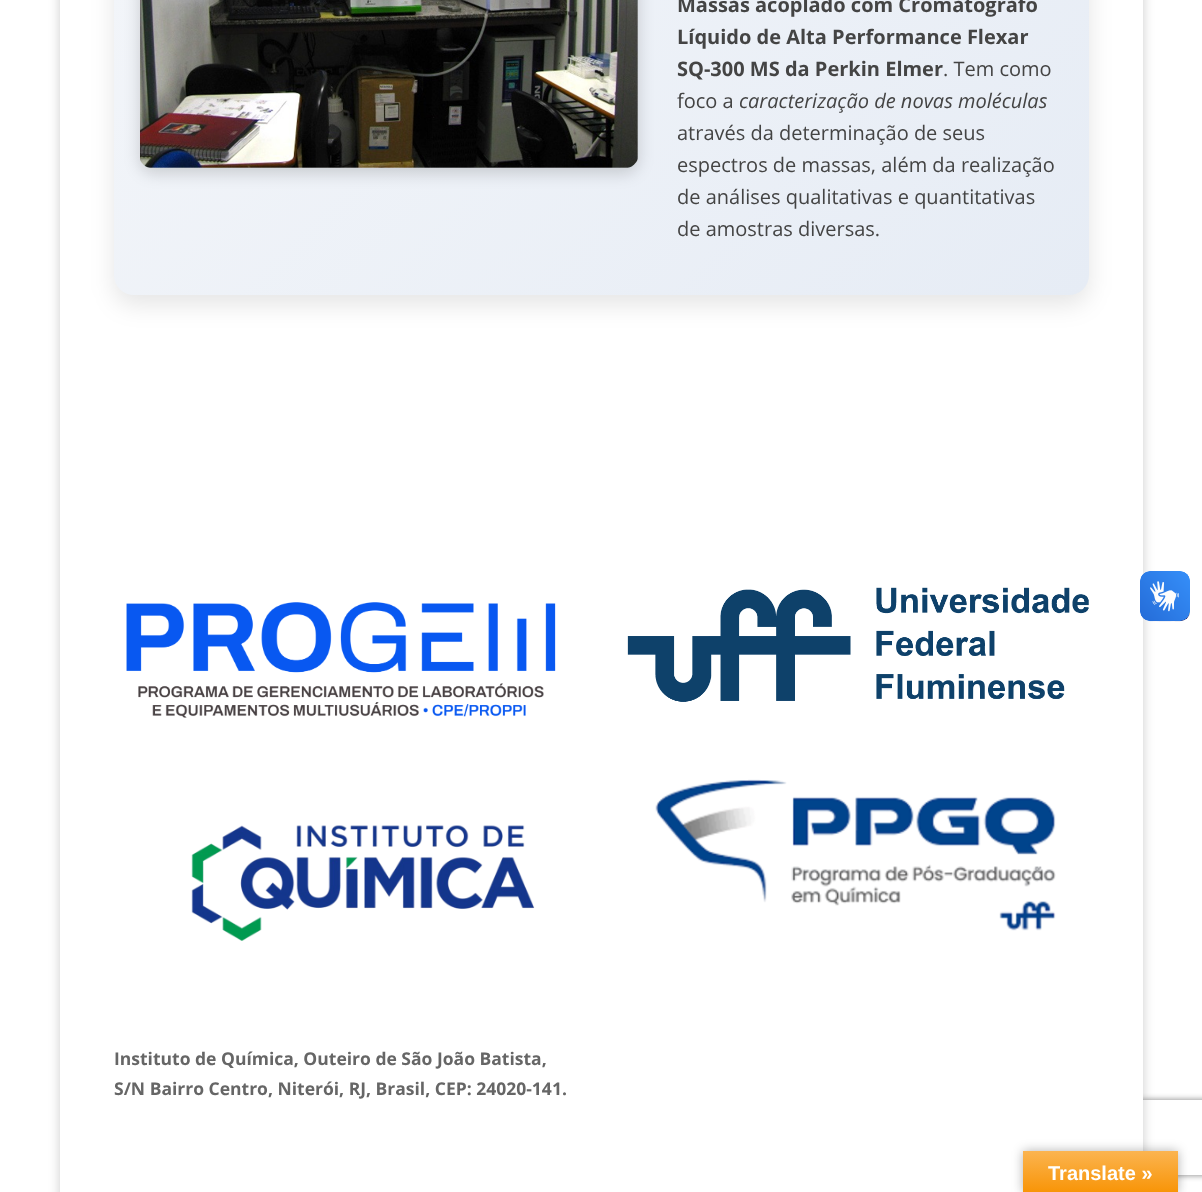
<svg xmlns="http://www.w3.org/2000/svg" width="1202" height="1192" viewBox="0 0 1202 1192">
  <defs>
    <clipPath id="clip1"><path d="M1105 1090H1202V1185H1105ZM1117.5 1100H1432.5C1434 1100 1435 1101 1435 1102.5V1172.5C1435 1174 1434 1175 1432.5 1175H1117.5C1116 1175 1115 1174 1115 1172.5V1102.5C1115 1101 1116 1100 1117.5 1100Z" clip-rule="evenodd"/></clipPath>
    <linearGradient id="g1" gradientUnits="userSpaceOnUse" x1="201" y1="-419" x2="1002" y2="382"><stop offset="0" stop-color="rgb(245,247,250)"/><stop offset="1" stop-color="rgb(230,236,245)"/></linearGradient>
    <linearGradient id="g2" gradientUnits="userSpaceOnUse" x1="1100" y1="1151" x2="1100" y2="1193"><stop offset="0" stop-color="rgb(251,180,80)"/><stop offset="1" stop-color="rgb(248,148,6)"/></linearGradient>
  </defs>
  <rect width="100%" height="100%" fill="rgb(255,255,255)"/>
  <rect x="60" y="-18" width="1083" height="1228" fill="rgba(0,0,0,0.2)" filter="blur(6px)"/>
  <g clip-path="url(#clip1)">
    <rect x="1115" y="1100" width="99" height="75" rx="2.5" fill="rgb(128,128,128)" filter="blur(3px)"/>
  </g>
  <rect x="60" y="0" width="1083" height="1192" fill="rgb(255,255,255)"/>
  <rect x="114" y="-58" width="975" height="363" rx="20" fill="rgba(0,0,0,0.1)" filter="blur(12.5px)"/>
  <rect x="114" y="-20" width="975" height="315" rx="20" fill="url(#g1)"/>
  <rect x="139" y="-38" width="500" height="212" rx="15" fill="rgba(0,0,0,0.15)" filter="blur(7.5px)"/>
  <image x="140" y="0" width="498" height="168" href="pic1.png"/>
  <g font-family="Open Sans" font-size="20" font-weight="bold" fill="rgb(68,68,68)">
    <text>
      <tspan x="677" y="12">Massas acoplado com Cromatógrafo</tspan>
      <tspan x="677" y="44">Líquido de Alta Performance Flexar</tspan>
      <tspan x="677" y="76">SQ-300 MS da Perkin Elmer</tspan>
    </text>
  </g>
  <g font-family="Open Sans" font-size="20" fill="rgb(68,68,68)">
    <text x="943" y="76">. Tem como</text>
    <text x="677" y="108">foco a</text>
  </g>
  <text x="739" y="108" font-family="Open Sans" font-size="20" font-style="italic" fill="rgb(68,68,68)">caracterização de novas moléculas</text>
  <g font-family="Open Sans" font-size="20" fill="rgb(68,68,68)">
    <text>
      <tspan x="677" y="140">através da determinação de seus</tspan>
      <tspan x="677" y="172">espectros de massas, além da realização</tspan>
      <tspan x="677" y="204">de análises qualitativas e quantitativas</tspan>
      <tspan x="677" y="236">de amostras diversas.</tspan>
    </text>
  </g>
  <image x="126" y="602" width="430" height="116" href="pic2.png"/>
  <image x="627" y="587" width="462" height="115" href="pic3.png"/>
  <image x="191" y="825" width="344" height="116" href="pic4.png"/>
  <image x="655" y="779" width="401" height="152" href="pic5.png"/>
  <g font-family="Open Sans" font-size="17.5" font-weight="bold" fill="rgb(102,102,102)">
    <text>
      <tspan x="114" y="1065">Instituto de Química, Outeiro de São João Batista,</tspan>
      <tspan x="114" y="1095">S/N Bairro Centro, Niterói, RJ, Brasil, CEP: 24020-141.</tspan>
    </text>
  </g>
  <image x="1140" y="571" width="50" height="51" href="pic6.png"/>
  <image x="1140" y="571" width="50" height="50" href="pic7.png"/>
  <rect x="1023" y="1151" width="155" height="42" fill="rgba(0,0,0,0.3)" filter="blur(5.5px)"/>
  <rect x="1023" y="1151" width="155" height="41" fill="url(#g2)"/>
  <text x="1048" y="1180" font-family="Liberation Sans" font-size="20" font-weight="bold" fill="rgb(255,255,255)">Translate »</text>
</svg>
